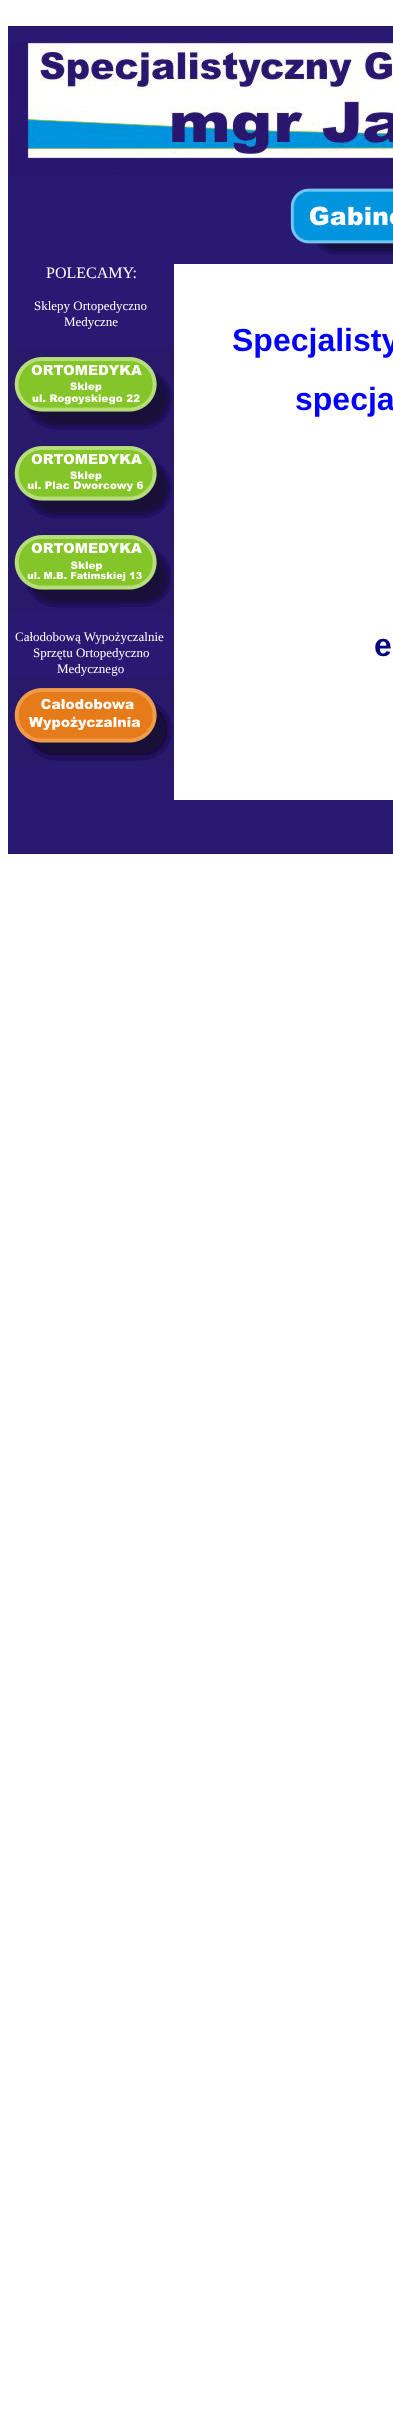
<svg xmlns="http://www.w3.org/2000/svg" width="393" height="2427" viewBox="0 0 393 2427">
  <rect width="100%" height="100%" fill="rgb(255,255,255)"/>
  <rect x="8" y="26" width="385" height="828" fill="rgb(41,25,115)"/>
  <image x="10" y="42" width="383" height="134" href="pic1.png"/>
  <image x="278" y="179" width="115" height="77" href="pic2.png"/>
  <text x="46" y="278" font-family="Liberation Serif" font-size="16" fill="rgb(255,255,255)">POLECAMY:</text>
  <g font-family="Liberation Serif" font-size="13" fill="rgb(255,255,255)">
    <text x="34" y="310">Sklepy Ortopedyczno</text>
    <text x="64" y="326">Medyczne</text>
  </g>
  <image x="8" y="346" width="166" height="89" href="pic3.png"/>
  <image x="8" y="435" width="166" height="89" href="pic4.png"/>
  <image x="8" y="524" width="166" height="89" href="pic5.png"/>
  <g font-family="Liberation Serif" font-size="13" fill="rgb(255,255,255)">
    <text x="15" y="641">Całodobową Wypożyczalnie</text>
    <text x="33" y="657">Sprzętu Ortopedyczno</text>
    <text x="57" y="673">Medycznego</text>
  </g>
  <image x="8" y="677" width="166" height="89" href="pic6.png"/>
  <rect x="174" y="264" width="219" height="536" fill="rgb(255,255,255)"/>
  <g font-family="Liberation Sans" font-size="32" font-weight="bold" fill="rgb(0,0,255)">
    <text x="232" y="351">Specjalisty</text>
    <text x="295" y="410">specja</text>
  </g>
  <text x="374" y="656" font-family="Liberation Sans" font-size="32" font-weight="bold" fill="rgb(0,0,128)">e</text>
</svg>
